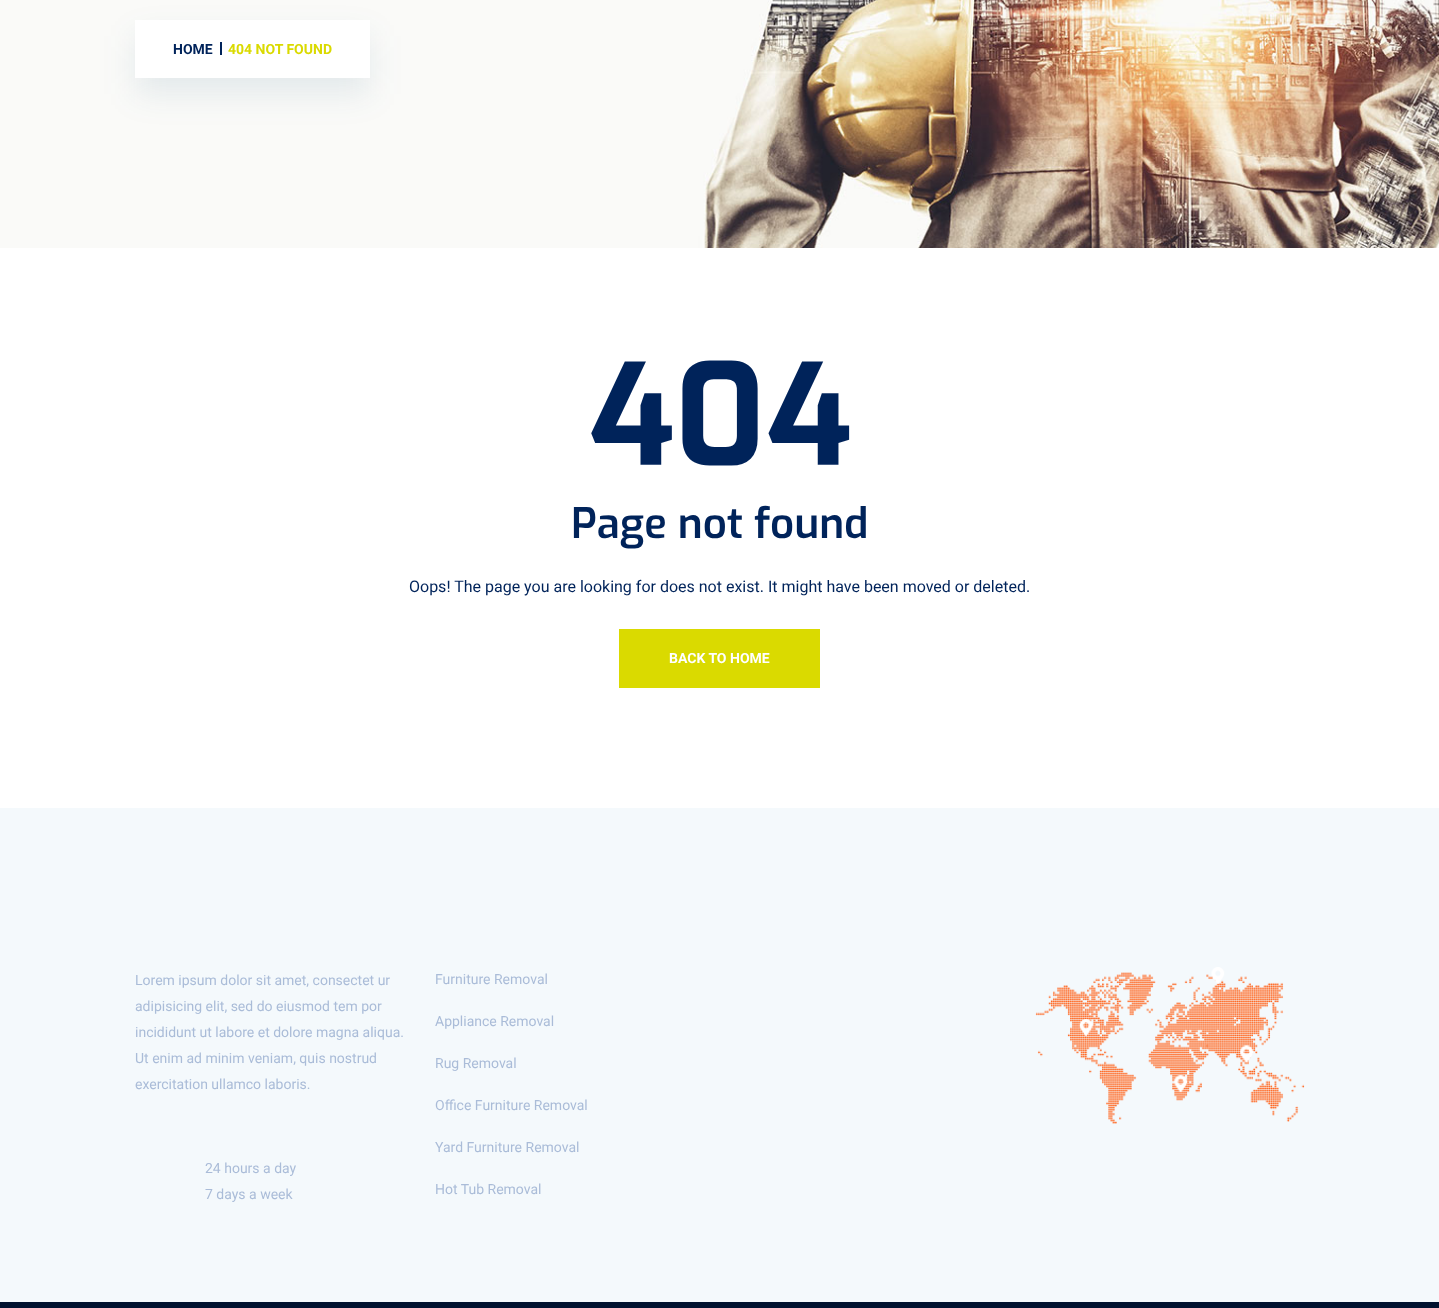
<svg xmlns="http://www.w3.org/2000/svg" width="1439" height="1308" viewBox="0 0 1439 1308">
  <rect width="100%" height="100%" fill="rgb(255,255,255)"/>
  <image x="0" y="0" width="1439" height="248" href="pic1.png"/>
  <rect x="135" y="36" width="235" height="58" fill="rgba(32,85,125,0.1)" filter="blur(16px)"/>
  <rect x="135" y="20" width="235" height="58" fill="rgb(255,255,255)"/>
  <text x="173" y="54" font-family="Roboto" font-size="14" font-weight="bold" fill="rgb(0,35,90)">HOME</text>
  <rect x="220" y="42" width="2" height="13" fill="rgb(0,35,90)"/>
  <text x="228" y="54" font-family="Roboto" font-size="14" font-weight="bold" fill="rgb(218,218,0)">404 NOT FOUND</text>
  <text x="588" y="465" font-family="Exo" font-size="140" font-weight="bold" fill="rgb(0,35,90)">404</text>
  <text x="571" y="538" font-family="Exo" font-size="42" font-weight="600" fill="rgb(0,35,90)">Page not found</text>
  <text x="409" y="592" font-family="Roboto" font-size="16" fill="rgb(0,35,90)">Oops! The page you are looking for does not exist. It might have been moved or deleted.</text>
  <rect x="619" y="629" width="201" height="59" fill="rgb(218,218,0)"/>
  <text x="669" y="663" font-family="Roboto" font-size="14" font-weight="bold" fill="rgb(255,255,255)">BACK TO HOME</text>
  <rect x="0" y="808" width="1439" height="494" fill="rgb(244,249,252)"/>
  <g font-family="Roboto" font-size="14" fill="rgb(170,188,216)">
    <text>
      <tspan x="135" y="985">Lorem ipsum dolor sit amet, consectet ur</tspan>
      <tspan x="135" y="1011">adipisicing elit, sed do eiusmod tem por</tspan>
      <tspan x="135" y="1037">incididunt ut labore et dolore magna aliqua.</tspan>
      <tspan x="135" y="1063">Ut enim ad minim veniam, quis nostrud</tspan>
      <tspan x="135" y="1089">exercitation ullamco laboris.</tspan>
    </text>
    <text>
      <tspan x="205" y="1173">24 hours a day</tspan>
      <tspan x="205" y="1199">7 days a week</tspan>
    </text>
    <text x="435" y="984">Furniture Removal</text>
    <text x="435" y="1026">Appliance Removal</text>
    <text x="435" y="1068">Rug Removal</text>
    <text x="435" y="1110">Office Furniture Removal</text>
    <text x="435" y="1152">Yard Furniture Removal</text>
    <text x="435" y="1194">Hot Tub Removal</text>
  </g>
  <image x="1035" y="967" width="270" height="157" href="pic2.png"/>
  <rect x="0" y="1302" width="1439" height="6" fill="rgb(0,18,47)"/>
</svg>
